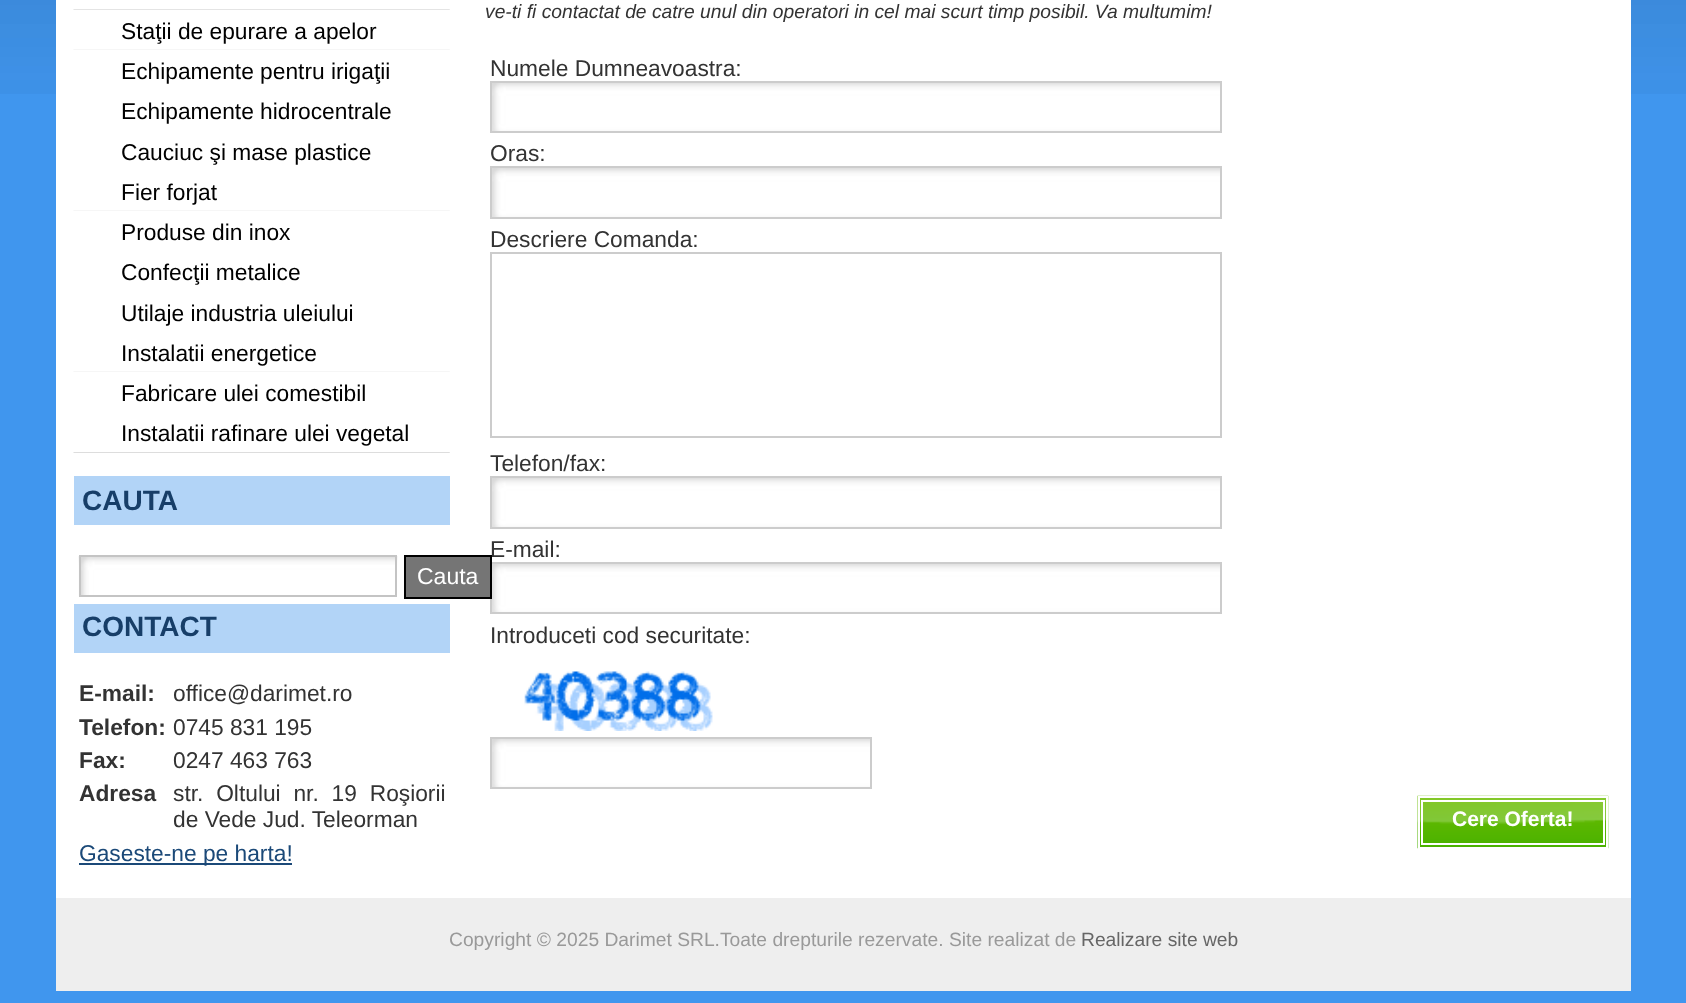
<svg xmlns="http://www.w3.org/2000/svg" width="1686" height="1003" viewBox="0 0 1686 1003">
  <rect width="100%" height="100%" fill="rgb(64,150,238)"/>
  <image x="0" y="0" width="1686" height="94" href="pic1.png"/>
  <rect x="56" y="0" width="1575" height="898" fill="rgb(255,255,255)"/>
  <image x="73" y="9" width="377" height="1" href="pic2.png"/>
  <image x="73" y="49" width="377" height="1" href="pic3.png"/>
  <g font-family="Liberation Sans" font-size="22.75" fill="rgb(0,0,0)">
    <text>
      <tspan x="121" y="39">Staţii de epurare a apelor</tspan>
      <tspan x="121" y="79">Echipamente pentru irigaţii</tspan>
      <tspan x="121" y="119">Echipamente hidrocentrale</tspan>
      <tspan x="121" y="160">Cauciuc şi mase plastice</tspan>
    </text>
  </g>
  <image x="73" y="210" width="377" height="1" href="pic3.png"/>
  <g font-family="Liberation Sans" font-size="22.75" fill="rgb(0,0,0)">
    <text>
      <tspan x="121" y="200">Fier forjat</tspan>
      <tspan x="121" y="240">Produse din inox</tspan>
      <tspan x="121" y="280">Confecţii metalice</tspan>
      <tspan x="121" y="321">Utilaje industria uleiului</tspan>
    </text>
  </g>
  <image x="73" y="371" width="377" height="1" href="pic3.png"/>
  <g font-family="Liberation Sans" font-size="22.75" fill="rgb(0,0,0)">
    <text>
      <tspan x="121" y="361">Instalatii energetice</tspan>
      <tspan x="121" y="401">Fabricare ulei comestibil</tspan>
    </text>
  </g>
  <image x="73" y="452" width="377" height="1" href="pic4.png"/>
  <text x="121" y="441" font-family="Liberation Sans" font-size="22.75" fill="rgb(0,0,0)">Instalatii rafinare ulei vegetal</text>
  <rect x="74" y="476" width="376" height="49" fill="rgb(178,212,247)"/>
  <text x="82" y="510" font-family="Liberation Sans" font-size="28" font-weight="bold" fill="rgb(23,62,104)">CAUTA</text>
  <image x="78" y="556" width="320" height="41" href="pic5.png"/>
  <rect x="80" y="556" width="316" height="40" fill="none" stroke="rgb(196,196,196)" stroke-width="2"/>
  <text x="490" y="557" font-family="Liberation Sans" font-size="22.75" fill="rgb(51,51,51)">E-mail:</text>
  <image x="492" y="564" width="728" height="48" href="pic9.png"/>
  <rect x="491" y="563" width="730" height="50" fill="none" stroke="rgb(204,204,204)" stroke-width="2"/>
  <rect x="405" y="556" width="86" height="42" fill="rgb(117,117,117)" stroke="rgb(0,0,0)" stroke-width="2"/>
  <text x="417" y="584" font-family="Liberation Sans" font-size="23" fill="rgb(255,255,255)">Cauta</text>
  <rect x="74" y="604" width="376" height="49" fill="rgb(178,212,247)"/>
  <text x="82" y="636" font-family="Liberation Sans" font-size="28" font-weight="bold" fill="rgb(23,62,104)">CONTACT</text>
  <text x="79" y="701" font-family="Liberation Sans" font-size="22.75" font-weight="bold" fill="rgb(51,51,51)">E-mail:</text>
  <text x="173" y="701" font-family="Liberation Sans" font-size="22.75" fill="rgb(51,51,51)">office@darimet.ro</text>
  <text x="79" y="735" font-family="Liberation Sans" font-size="22.75" font-weight="bold" fill="rgb(51,51,51)">Telefon:</text>
  <text x="173" y="735" font-family="Liberation Sans" font-size="22.75" fill="rgb(51,51,51)">0745 831 195</text>
  <text x="79" y="768" font-family="Liberation Sans" font-size="22.75" font-weight="bold" fill="rgb(51,51,51)">Fax:</text>
  <text x="173" y="768" font-family="Liberation Sans" font-size="22.75" fill="rgb(51,51,51)">0247 463 763</text>
  <text x="79" y="801" font-family="Liberation Sans" font-size="22.75" font-weight="bold" fill="rgb(51,51,51)">Adresa</text>
  <g font-family="Liberation Sans" font-size="22.75" fill="rgb(51,51,51)">
    <text>
      <tspan x="173" y="801" word-spacing="6.5">str. Oltului nr. 19 Roşiorii</tspan>
      <tspan x="173" y="827">de Vede Jud. Teleorman</tspan>
    </text>
  </g>
  <rect x="79" y="863" width="213" height="2" fill="rgb(27,73,120)"/>
  <text x="79" y="861" font-family="Liberation Sans" font-size="22.75" fill="rgb(27,73,120)">Gaseste-ne pe harta!</text>
  <text x="485" y="18" font-family="Liberation Sans" font-size="19.25" font-style="italic" fill="rgb(51,51,51)">ve-ti fi contactat de catre unul din operatori in cel mai scurt timp posibil. Va multumim!</text>
  <text x="490" y="76" font-family="Liberation Sans" font-size="22.75" fill="rgb(51,51,51)">Numele Dumneavoastra:</text>
  <image x="492" y="83" width="728" height="48" href="pic6.png"/>
  <rect x="491" y="82" width="730" height="50" fill="none" stroke="rgb(204,204,204)" stroke-width="2"/>
  <text x="490" y="161" font-family="Liberation Sans" font-size="22.75" fill="rgb(51,51,51)">Oras:</text>
  <image x="492" y="168" width="728" height="49" href="pic7.png"/>
  <rect x="491" y="167" width="730" height="51" fill="none" stroke="rgb(204,204,204)" stroke-width="2"/>
  <text x="490" y="247" font-family="Liberation Sans" font-size="22.75" fill="rgb(51,51,51)">Descriere Comanda:</text>
  <rect x="491" y="253" width="730" height="184" fill="none" stroke="rgb(204,204,204)" stroke-width="2"/>
  <text x="490" y="471" font-family="Liberation Sans" font-size="22.75" fill="rgb(51,51,51)">Telefon/fax:</text>
  <image x="492" y="478" width="728" height="49" href="pic8.png"/>
  <rect x="491" y="477" width="730" height="51" fill="none" stroke="rgb(204,204,204)" stroke-width="2"/>
  <text x="490" y="643" font-family="Liberation Sans" font-size="22.75" fill="rgb(51,51,51)">Introduceti cod securitate:</text>
  <image x="524" y="671" width="189" height="60" href="pic10.png"/>
  <image x="492" y="739" width="378" height="48" href="pic11.png"/>
  <rect x="491" y="738" width="380" height="50" fill="none" stroke="rgb(204,204,204)" stroke-width="2"/>
  <image x="1417" y="795" width="192" height="54" href="pic12.png"/>
  <rect x="1419" y="797" width="188" height="51" fill="none" stroke="rgb(255,255,255)" stroke-width="2"/>
  <rect x="1422" y="801" width="182" height="43" fill="none" stroke="rgb(255,255,255)" stroke-width="2"/>
  <text x="1452" y="826" font-family="Liberation Sans" font-size="21" font-weight="bold" fill="rgb(255,255,255)">Cere Oferta!</text>
  <rect x="56" y="898" width="1575" height="93" fill="rgb(238,238,238)"/>
  <text x="449" y="946" font-family="Liberation Sans" font-size="19.25" fill="rgb(153,153,153)">Copyright © 2025 Darimet SRL.Toate drepturile rezervate. Site realizat de</text>
  <text x="1081" y="946" font-family="Liberation Sans" font-size="19.25" fill="rgb(102,102,102)">Realizare site web</text>
</svg>
